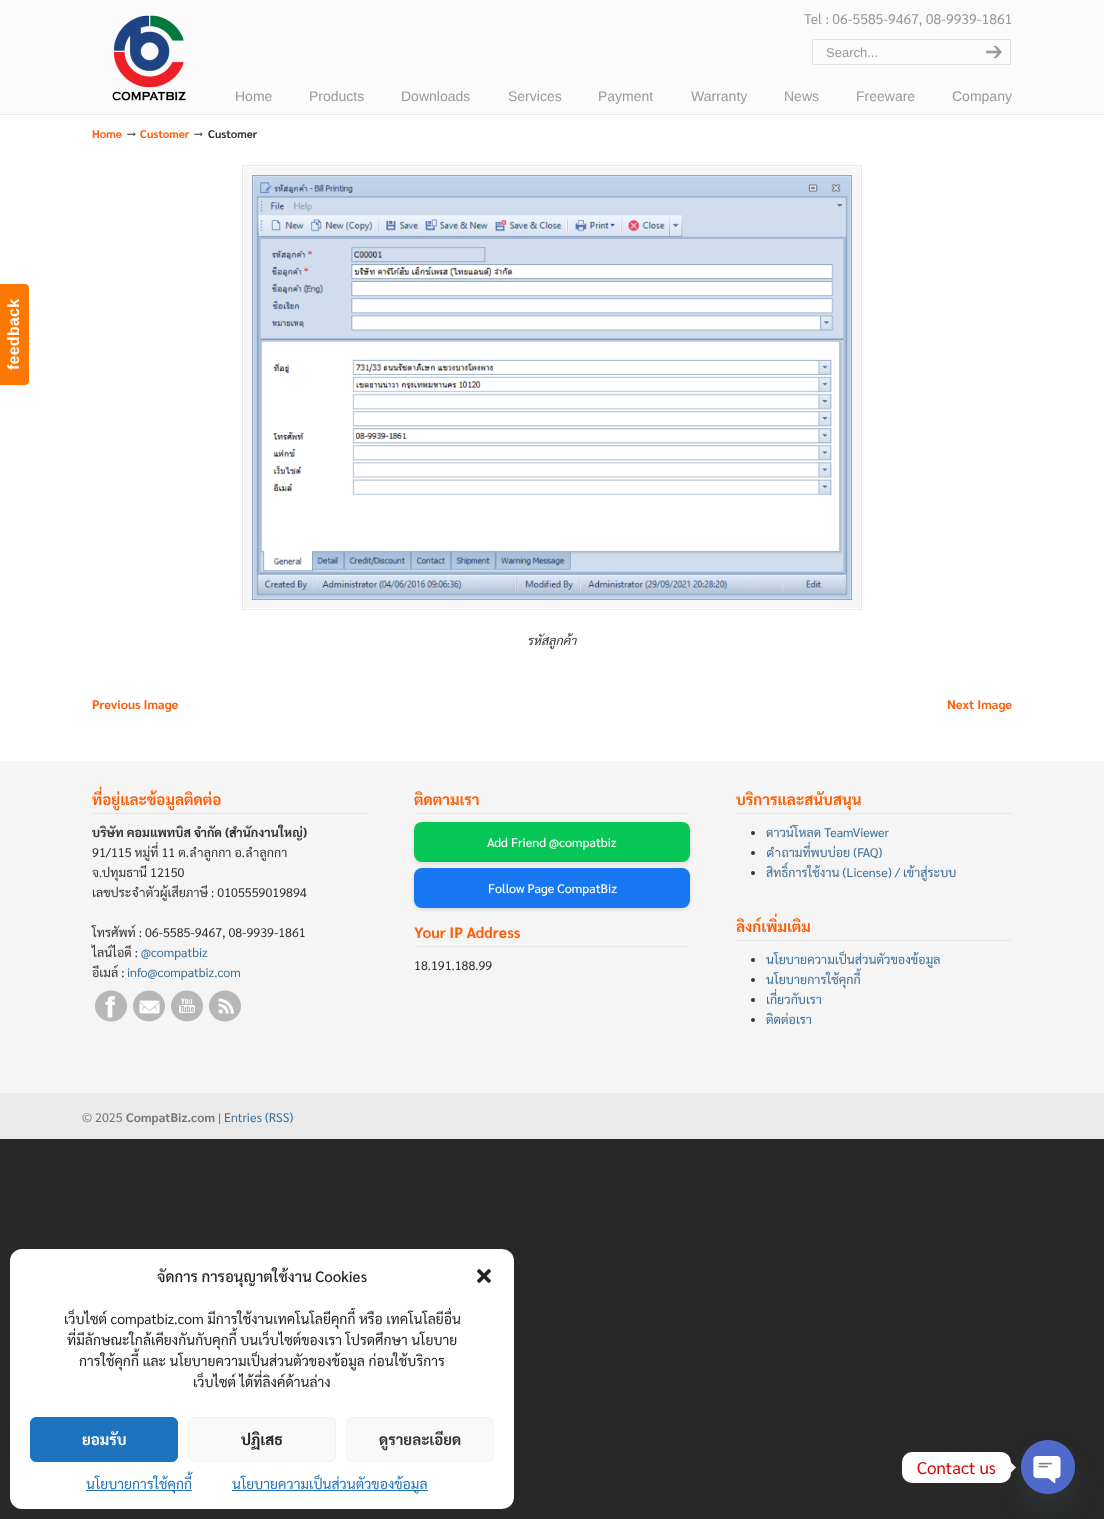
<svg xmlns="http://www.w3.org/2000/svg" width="1104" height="1519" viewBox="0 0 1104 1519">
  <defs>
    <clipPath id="clip1"><rect x="30" y="1308" width="464" height="89"/></clipPath>
  </defs>
  <rect width="100%" height="100%" fill="rgb(40,40,40)"/>
  <rect x="0" y="115" width="1104" height="646" fill="rgb(255,255,255)"/>
  <path d="M-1 385V284H25C27 284 29 286 29 288V381C29 383 27 385 25 385Z" fill="rgb(253,120,0)"/>
  <text x="19" y="370" transform="rotate(-90 19 370)" font-family="Liberation Sans" font-size="16" font-weight="bold" letter-spacing="0.25" fill="rgb(255,255,255)">feedback</text>
  <rect x="0" y="0" width="1104" height="114" fill="rgb(251,251,251)"/>
  <image x="112" y="15" width="74" height="86" href="pic1.png"/>
  <text x="804" y="24" font-family="Sarabun" font-size="14" fill="rgb(153,153,153)">Tel : 06-5585-9467, 08-9939-1861</text>
  <image x="812" y="39" width="159" height="26" href="pic2.png"/>
  <text x="826" y="57" font-family="Liberation Sans" font-size="13" fill="rgb(153,153,153)">Search...</text>
  <image x="971" y="39" width="40" height="26" href="pic3.png"/>
  <g font-family="Liberation Sans" font-size="14" fill="rgb(153,153,153)">
    <text x="235" y="101">Home</text>
    <text x="309" y="101">Products</text>
    <text x="401" y="101">Downloads</text>
    <text x="508" y="101">Services</text>
    <text x="598" y="101">Payment</text>
    <text x="691" y="101">Warranty</text>
    <text x="784" y="101">News</text>
    <text x="856" y="101">Freeware</text>
    <text x="952" y="101">Company</text>
  </g>
  <rect x="0" y="114" width="1104" height="1" fill="rgb(233,233,233)"/>
  <text x="92" y="138" font-family="Sarabun" font-size="11.25" font-weight="bold" fill="rgb(254,94,8)">Home</text>
  <text x="125" y="138" font-family="Sarabun" font-size="14" font-weight="bold" fill="rgb(51,51,51)">→</text>
  <text x="140" y="138" font-family="Sarabun" font-size="11.25" font-weight="bold" fill="rgb(254,94,8)">Customer</text>
  <text x="192" y="138" font-family="Sarabun" font-size="14" font-weight="bold" fill="rgb(51,51,51)">→</text>
  <text x="208" y="138" font-family="Sarabun" font-size="11.25" font-weight="bold" fill="rgb(51,51,51)">Customer</text>
  <rect x="244" y="167" width="616" height="441" fill="rgb(246,246,246)"/>
  <rect x="242.5" y="165.5" width="619" height="444" fill="none" stroke="rgb(234,234,234)"/>
  <image x="252" y="175" width="600" height="425" href="pic4.png"/>
  <text x="527" y="645" font-family="Sarabun" font-size="12.5" font-style="italic" fill="rgb(51,51,51)">รหัสลูกค้า</text>
  <g font-family="Sarabun" font-size="12.5" font-weight="bold" fill="rgb(254,94,8)">
    <text x="92" y="709">Previous Image</text>
    <text x="947" y="709">Next Image</text>
  </g>
  <rect x="0" y="761" width="1104" height="332" fill="rgb(245,245,245)"/>
  <rect x="92" y="813" width="276" height="1" fill="rgb(230,230,230)"/>
  <text x="92" y="805" font-family="Sarabun" font-size="15.1" font-weight="bold" fill="rgb(254,94,8)">ที่อยู่และข้อมูลติดต่อ</text>
  <text x="92" y="837" font-family="Sarabun" font-size="12.5" font-weight="bold" fill="rgb(51,51,51)">บริษัท คอมแพทบิส จำกัด (สำนักงานใหญ่)</text>
  <g font-family="Sarabun" font-size="12.5" fill="rgb(51,51,51)">
    <text>
      <tspan x="92" y="857">91/115 หมู่ที่ 11 ต.ลำลูกกา อ.ลำลูกกา</tspan>
      <tspan x="92" y="877">จ.ปทุมธานี 12150</tspan>
      <tspan x="92" y="897">เลขประจำตัวผู้เสียภาษี : 0105559019894</tspan>
    </text>
    <text>
      <tspan x="92" y="937">โทรศัพท์ : 06-5585-9467, 08-9939-1861</tspan>
      <tspan x="92" y="957">ไลน์ไอดี :</tspan>
    </text>
  </g>
  <text x="141" y="957" font-family="Sarabun" font-size="12.5" fill="rgb(61,110,151)">@compatbiz</text>
  <text x="92" y="977" font-family="Sarabun" font-size="12.5" fill="rgb(51,51,51)">อีเมล์ :</text>
  <text x="127" y="977" font-family="Sarabun" font-size="12.5" fill="rgb(61,110,151)">info@compatbiz.com</text>
  <image x="95" y="990" width="32" height="32" href="pic5.png"/>
  <image x="133" y="990" width="32" height="32" href="pic6.png"/>
  <image x="171" y="990" width="32" height="32" href="pic7.png"/>
  <image x="209" y="990" width="32" height="32" href="pic8.png"/>
  <rect x="414" y="813" width="276" height="1" fill="rgb(230,230,230)"/>
  <text x="414" y="805" font-family="Sarabun" font-size="15.1" font-weight="bold" fill="rgb(254,94,8)">ติดตามเรา</text>
  <rect x="414" y="824" width="276" height="40" rx="8" fill="rgba(0,0,0,0.1)" filter="blur(2px)"/>
  <rect x="414" y="822" width="276" height="40" rx="8" fill="rgb(6,199,85)"/>
  <text x="487" y="847" font-family="Sarabun" font-size="12.5" font-weight="500" fill="rgb(255,255,255)">Add Friend @compatbiz</text>
  <rect x="414" y="870" width="276" height="40" rx="8" fill="rgba(0,0,0,0.1)" filter="blur(2px)"/>
  <rect x="414" y="868" width="276" height="40" rx="8" fill="rgb(24,119,242)"/>
  <text x="488" y="893" font-family="Sarabun" font-size="12.5" font-weight="500" fill="rgb(255,255,255)">Follow Page CompatBiz</text>
  <rect x="414" y="946" width="276" height="1" fill="rgb(230,230,230)"/>
  <text x="414" y="938" font-family="Sarabun" font-size="15.1" font-weight="bold" fill="rgb(254,94,8)">Your IP Address</text>
  <text x="414" y="970" font-family="Sarabun" font-size="12.5" fill="rgb(51,51,51)">18.191.188.99</text>
  <rect x="736" y="813" width="276" height="1" fill="rgb(230,230,230)"/>
  <text x="736" y="805" font-family="Sarabun" font-size="15.1" font-weight="bold" fill="rgb(254,94,8)">บริการและสนับสนุน</text>
  <circle cx="753" cy="833" r="2" fill="rgb(51,51,51)"/>
  <text x="766" y="837" font-family="Sarabun" font-size="12.5" fill="rgb(61,110,151)">ดาวน์โหลด TeamViewer</text>
  <circle cx="753" cy="853" r="2" fill="rgb(51,51,51)"/>
  <text x="766" y="857" font-family="Sarabun" font-size="12.5" fill="rgb(61,110,151)">คำถามที่พบบ่อย (FAQ)</text>
  <circle cx="753" cy="873" r="2" fill="rgb(51,51,51)"/>
  <text x="766" y="877" font-family="Sarabun" font-size="12.5" fill="rgb(61,110,151)">สิทธิ์การใช้งาน (License) / เข้าสู่ระบบ</text>
  <rect x="736" y="940" width="276" height="1" fill="rgb(230,230,230)"/>
  <text x="736" y="932" font-family="Sarabun" font-size="15.1" font-weight="bold" fill="rgb(254,94,8)">ลิงก์เพิ่มเติม</text>
  <circle cx="753" cy="960" r="2" fill="rgb(51,51,51)"/>
  <text x="766" y="964" font-family="Sarabun" font-size="12.5" fill="rgb(61,110,151)">นโยบายความเป็นส่วนตัวของข้อมูล</text>
  <circle cx="753" cy="980" r="2" fill="rgb(51,51,51)"/>
  <text x="766" y="984" font-family="Sarabun" font-size="12.5" fill="rgb(61,110,151)">นโยบายการใช้คุกกี้</text>
  <circle cx="753" cy="1000" r="2" fill="rgb(51,51,51)"/>
  <text x="766" y="1004" font-family="Sarabun" font-size="12.5" fill="rgb(61,110,151)">เกี่ยวกับเรา</text>
  <circle cx="753" cy="1020" r="2" fill="rgb(51,51,51)"/>
  <text x="766" y="1024" font-family="Sarabun" font-size="12.5" fill="rgb(61,110,151)">ติดต่อเรา</text>
  <rect x="0" y="1093" width="1104" height="46" fill="rgb(234,234,234)"/>
  <text x="82" y="1122" font-family="Sarabun" font-size="12.5" fill="rgb(121,121,121)">© 2025</text>
  <text x="126" y="1122" font-family="Sarabun" font-size="12.5" font-weight="bold" fill="rgb(121,121,121)">CompatBiz.com</text>
  <text x="218" y="1122" font-family="Sarabun" font-size="12.5" fill="rgb(121,121,121)">|</text>
  <text x="224" y="1122" font-family="Sarabun" font-size="12.5" fill="rgb(61,110,151)">Entries (RSS)</text>
  <rect x="10" y="1249" width="504" height="260" rx="12" fill="rgb(255,255,255)"/>
  <text x="157" y="1282" font-family="Sarabun" font-size="15" font-weight="500" fill="rgb(34,34,34)">จัดการ การอนุญาตใช้งาน Cookies</text>
  <image x="477" y="1269" width="14" height="14" href="pic9.png"/>
  <g clip-path="url(#clip1)">
    <text x="64" y="1324" font-family="Sarabun" font-size="14" fill="rgb(34,34,34)">เว็บไซต์ compatbiz.com มีการใช้งานเทคโนโลยีคุกกี้ หรือ เทคโนโลยีอื่น</text>
  </g>
  <g font-family="Sarabun" font-size="14" fill="rgb(34,34,34)">
    <text x="67" y="1345">ที่มีลักษณะใกล้เคียงกันกับคุกกี้ บนเว็บไซต์ของเรา โปรดศึกษา นโยบาย</text>
    <text x="79" y="1366">การใช้คุกกี้ และ นโยบายความเป็นส่วนตัวของข้อมูล ก่อนใช้บริการ</text>
    <text x="193" y="1387">เว็บไซต์ ได้ที่ลิงค์ด้านล่าง</text>
  </g>
  <rect x="30.5" y="1417.5" width="147" height="44" rx="5.5" fill="rgb(30,115,190)" stroke="rgb(30,115,190)"/>
  <text x="82" y="1445" font-family="Sarabun" font-size="15" font-weight="bold" fill="rgb(255,255,255)">ยอมรับ</text>
  <rect x="188.5" y="1417.5" width="147" height="44" rx="5.5" fill="rgb(249,249,249)" stroke="rgb(242,242,242)"/>
  <text x="241" y="1445" font-family="Sarabun" font-size="15" font-weight="bold" fill="rgb(34,34,34)">ปฏิเสธ</text>
  <rect x="346.5" y="1417.5" width="147" height="44" rx="5.5" fill="rgb(249,249,249)" stroke="rgb(242,242,242)"/>
  <text x="379" y="1445" font-family="Sarabun" font-size="15" font-weight="bold" fill="rgb(51,51,51)">ดูรายละเอียด</text>
  <rect x="86" y="1490" width="106" height="1" fill="rgb(30,115,190)"/>
  <text x="86" y="1489" font-family="Sarabun" font-size="14" fill="rgb(30,115,190)">นโยบายการใช้คุกกี้</text>
  <rect x="232" y="1490" width="196" height="1" fill="rgb(30,115,190)"/>
  <text x="232" y="1489" font-family="Sarabun" font-size="14" fill="rgb(30,115,190)">นโยบายความเป็นส่วนตัวของข้อมูล</text>
  <rect x="902" y="1452" width="109" height="31" rx="10" fill="rgb(255,255,255)"/>
  <text x="917" y="1474" font-family="Sarabun" font-size="17" fill="rgb(221,0,0)">Contact us</text>
  <path d="M1011 1472.5V1462.5L1016 1467.5Z" fill="rgb(255,255,255)"/>
  <rect x="1021" y="1456" width="54" height="54" rx="27" fill="rgba(73,104,126,0.16)" filter="blur(12px)"/>
  <image x="1021" y="1440" width="54" height="54" href="pic10.png"/>
</svg>
